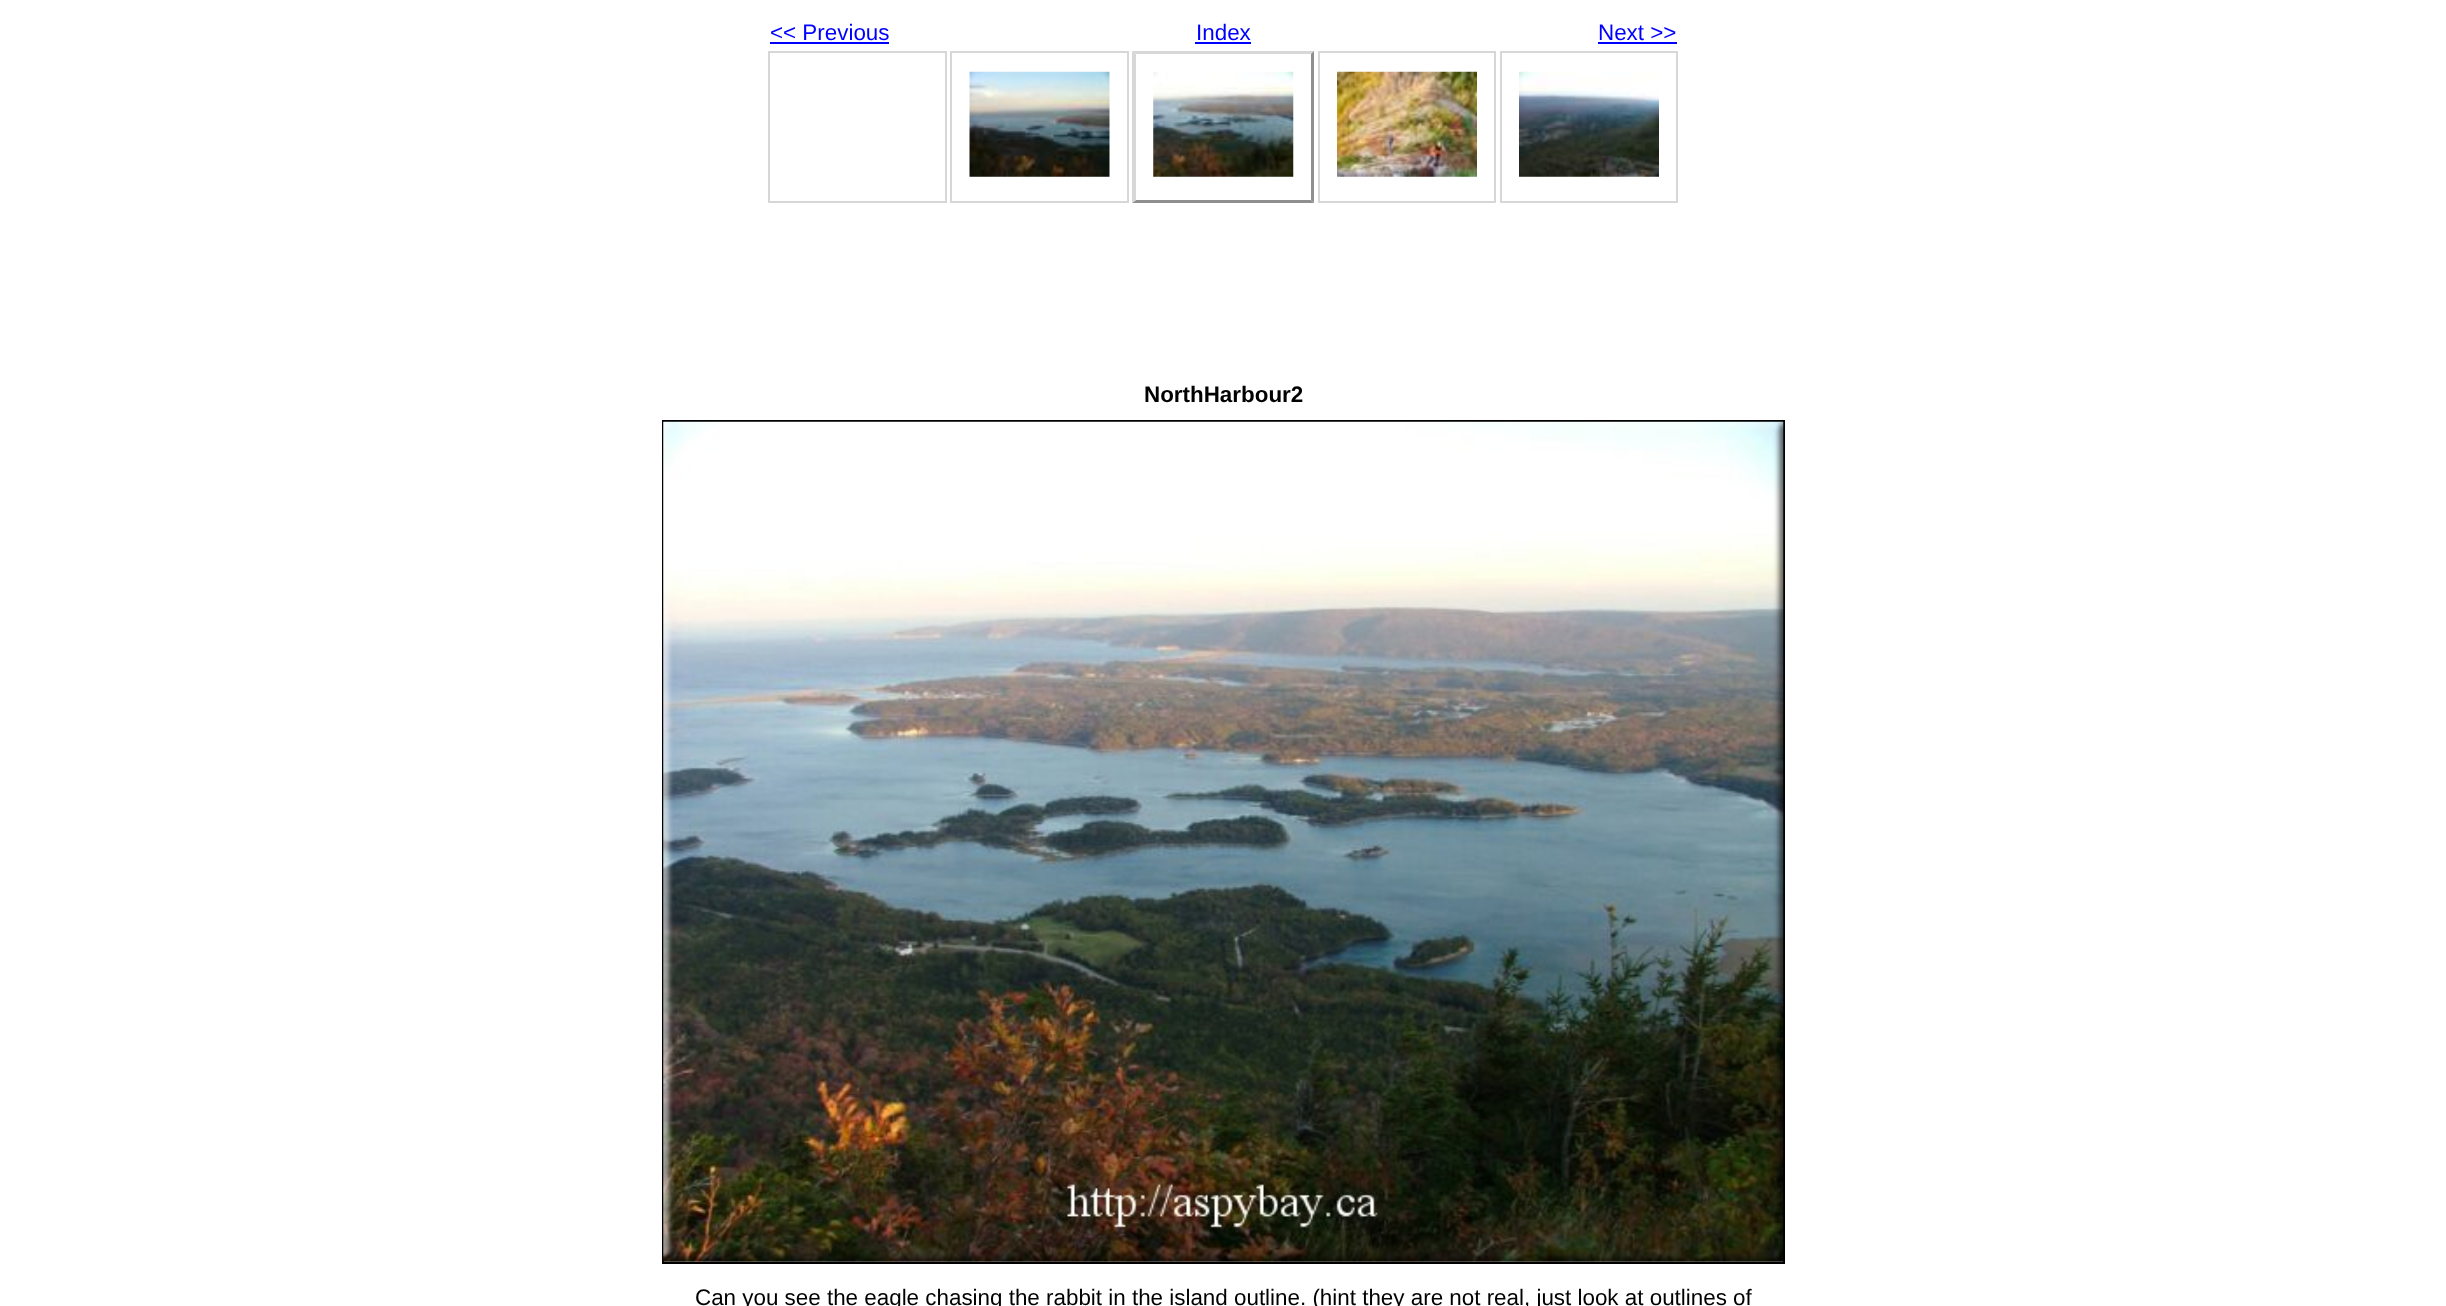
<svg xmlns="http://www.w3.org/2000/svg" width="2446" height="1306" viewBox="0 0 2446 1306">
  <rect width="100%" height="100%" fill="rgb(255,255,255)"/>
  <text x="770" y="40" font-family="Liberation Sans" font-size="22.4" fill="rgb(0,0,255)">&lt;&lt; Previous</text>
  <rect x="770" y="42" width="119" height="2" fill="rgb(0,0,255)"/>
  <text x="1196" y="40" font-family="Liberation Sans" font-size="22.4" fill="rgb(0,0,255)">Index</text>
  <rect x="1195" y="42" width="56" height="2" fill="rgb(0,0,255)"/>
  <text x="1598" y="40" font-family="Liberation Sans" font-size="22.4" fill="rgb(0,0,255)">Next &gt;&gt;</text>
  <rect x="1598" y="42" width="79" height="2" fill="rgb(0,0,255)"/>
  <rect x="769" y="52" width="177" height="150" fill="none" stroke="rgb(215,215,215)" stroke-width="2"/>
  <rect x="951" y="52" width="177" height="150" fill="none" stroke="rgb(215,215,215)" stroke-width="2"/>
  <image x="969" y="71" width="141" height="106" href="pic1.png"/>
  <path d="M1132 51H1314L1311 54H1136Z" fill="rgb(215,215,215)"/>
  <path d="M1314 51V203L1311 200V54Z" fill="rgb(143,143,143)"/>
  <path d="M1314 203H1132L1136 200H1311Z" fill="rgb(143,143,143)"/>
  <path d="M1132 203V51L1136 54V200Z" fill="rgb(215,215,215)"/>
  <image x="1153" y="71" width="141" height="106" href="pic2.png"/>
  <rect x="1319" y="52" width="176" height="150" fill="none" stroke="rgb(215,215,215)" stroke-width="2"/>
  <image x="1337" y="71" width="140" height="106" href="pic3.png"/>
  <rect x="1501" y="52" width="176" height="150" fill="none" stroke="rgb(215,215,215)" stroke-width="2"/>
  <image x="1519" y="71" width="140" height="106" href="pic4.png"/>
  <text x="1144" y="402" font-family="Liberation Sans" font-size="22.4" font-weight="bold" fill="rgb(0,0,0)">NorthHarbour2</text>
  <rect x="663" y="421" width="1121" height="842" fill="none" stroke="rgb(0,0,0)" stroke-width="2"/>
  <image x="663" y="421" width="1121" height="841" href="pic5.png"/>
  <text x="695" y="1305" font-family="Liberation Sans" font-size="22.4" fill="rgb(0,0,0)">Can you see the eagle chasing the rabbit in the island outline. (hint they are not real, just look at outlines of</text>
</svg>
